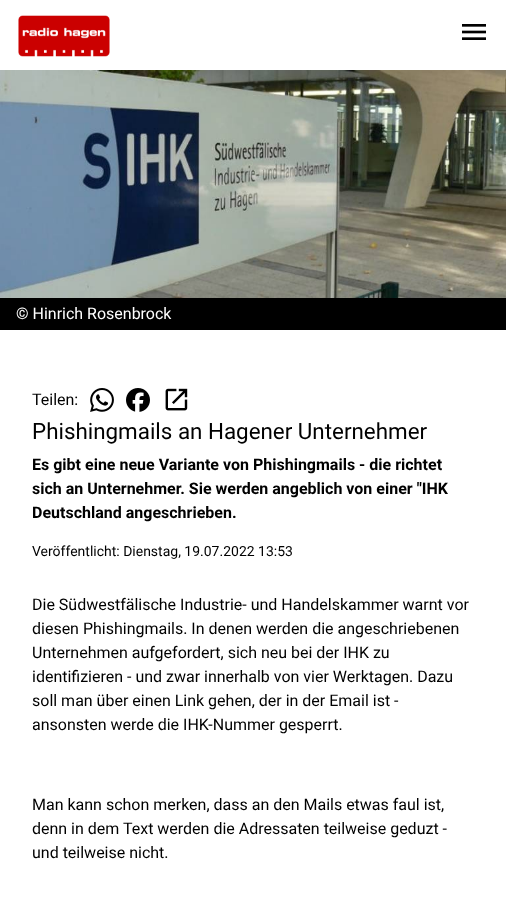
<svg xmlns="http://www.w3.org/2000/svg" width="506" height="910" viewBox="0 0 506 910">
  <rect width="100%" height="100%" fill="rgb(255,255,255)"/>
  <image x="18" y="15" width="92" height="42" href="pic1.png"/>
  <image x="462" y="24" width="24" height="16" href="pic2.png"/>
  <image x="0" y="70" width="506" height="228" href="pic3.png"/>
  <rect x="0" y="298" width="506" height="32" fill="rgb(0,0,0)"/>
  <text x="16" y="319" font-family="Roboto" font-size="16" fill="rgb(255,255,255)">© Hinrich Rosenbrock</text>
  <text x="32" y="405" font-family="Roboto" font-size="16" fill="rgb(0,0,0)">Teilen:</text>
  <image x="90" y="388" width="24" height="24" href="pic4.png"/>
  <image x="126" y="388" width="24" height="24" href="pic5.png"/>
  <image x="165" y="388" width="23" height="23" href="pic6.png"/>
  <text x="32" y="439" font-family="Roboto" font-size="22.4" fill="rgb(0,0,0)">Phishingmails an Hagener Unternehmer</text>
  <g font-family="Roboto" font-size="16" font-weight="bold" fill="rgb(0,0,0)">
    <text>
      <tspan x="32" y="470">Es gibt eine neue Variante von Phishingmails - die richtet</tspan>
      <tspan x="32" y="494">sich an Unternehmer. Sie werden angeblich von einer "IHK</tspan>
      <tspan x="32" y="518">Deutschland angeschrieben.</tspan>
    </text>
  </g>
  <text x="32" y="556" font-family="Roboto" font-size="14" fill="rgb(0,0,0)">Veröffentlicht: Dienstag, 19.07.2022 13:53</text>
  <g font-family="Roboto" font-size="16" fill="rgb(0,0,0)">
    <text>
      <tspan x="32" y="610">Die Südwestfälische Industrie- und Handelskammer warnt vor</tspan>
      <tspan x="32" y="634">diesen Phishingmails. In denen werden die angeschriebenen</tspan>
      <tspan x="32" y="658">Unternehmen aufgefordert, sich neu bei der IHK zu</tspan>
      <tspan x="32" y="682">identifizieren - und zwar innerhalb von vier Werktagen. Dazu</tspan>
      <tspan x="32" y="706">soll man über einen Link gehen, der in der Email ist -</tspan>
      <tspan x="32" y="730">ansonsten werde die IHK-Nummer gesperrt.</tspan>
    </text>
    <text>
      <tspan x="32" y="810">Man kann schon merken, dass an den Mails etwas faul ist,</tspan>
      <tspan x="32" y="834">denn in dem Text werden die Adressaten teilweise geduzt -</tspan>
      <tspan x="32" y="858">und teilweise nicht.</tspan>
    </text>
  </g>
</svg>
